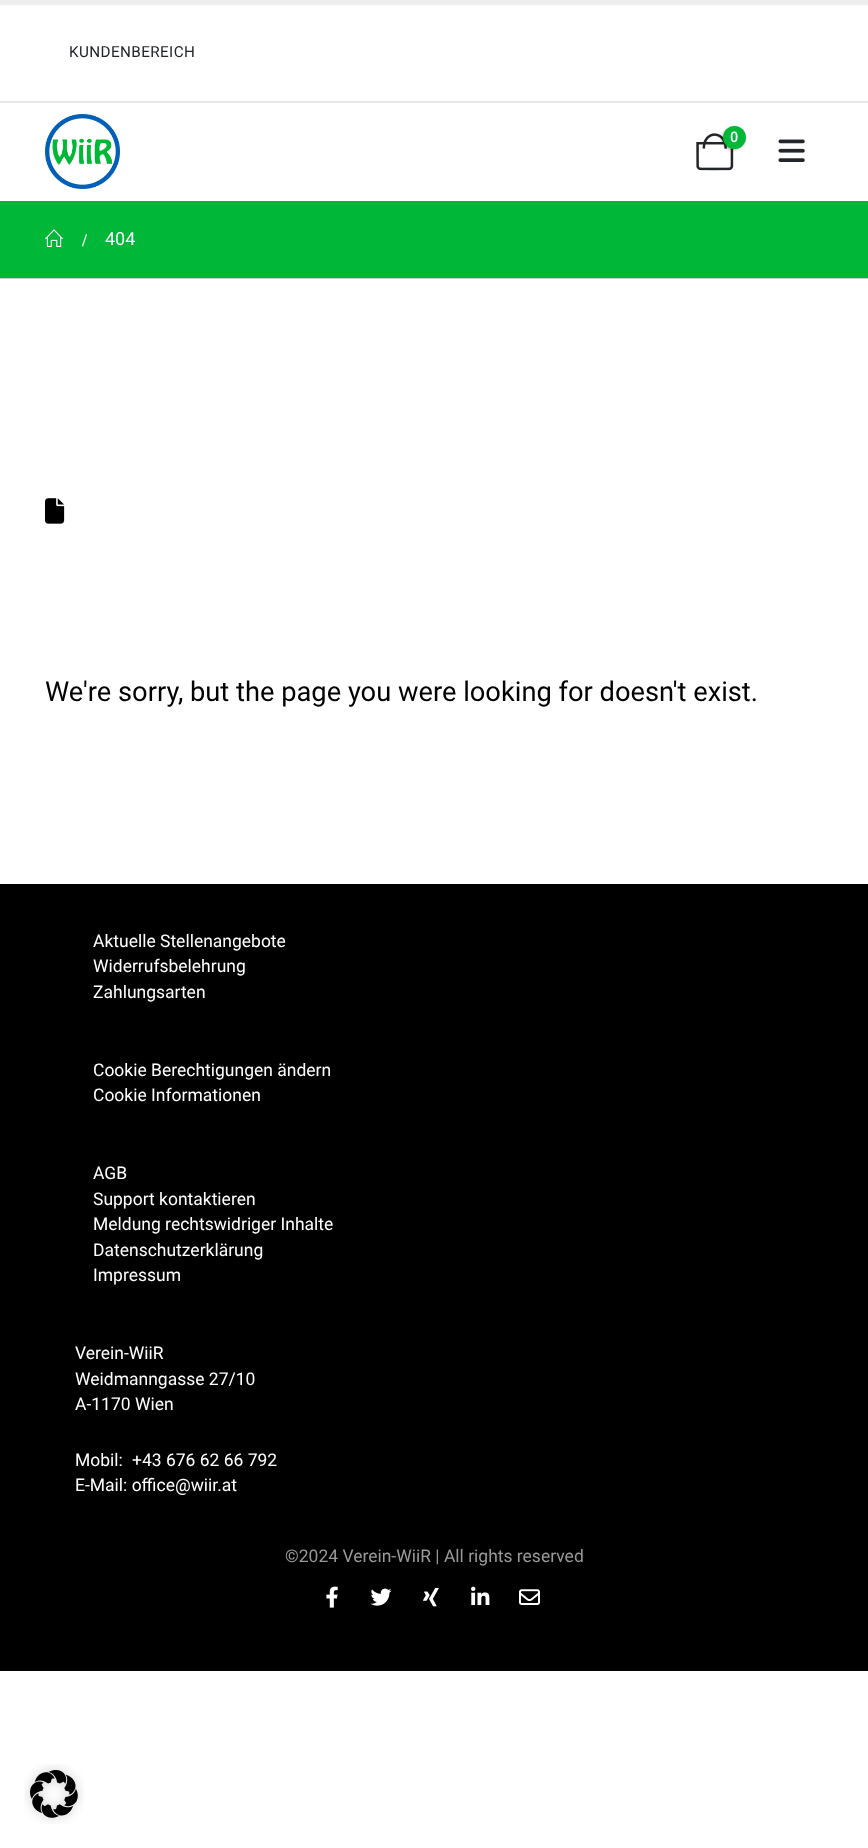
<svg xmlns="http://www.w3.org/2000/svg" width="868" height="1848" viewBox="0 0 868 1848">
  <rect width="100%" height="100%" fill="rgb(255,255,255)"/>
  <rect x="0" y="0" width="868" height="5" fill="rgb(237,237,237)"/>
  <rect x="0" y="101" width="868" height="2" fill="rgb(231,231,231)"/>
  <text x="69" y="57" font-family="Roboto" font-size="15.25" letter-spacing="0.4" fill="rgb(34,37,41)">KUNDENBEREICH</text>
  <image x="45" y="114" width="75" height="75" href="pic1.png"/>
  <image x="696" y="133" width="38" height="38" href="pic2.png"/>
  <rect x="722" y="128" width="22" height="22" rx="11" fill="rgba(0,0,0,0.3)" filter="blur(1.5px)"/>
  <circle cx="734.5" cy="137.5" r="11.5" fill="rgb(0,183,56)"/>
  <text x="730" y="142" font-family="Roboto" font-size="14" font-weight="bold" fill="rgb(255,255,255)">0</text>
  <image x="778" y="139" width="27" height="23" href="pic3.png"/>
  <rect x="0" y="201" width="868" height="77" fill="rgb(0,183,56)"/>
  <rect x="0" y="278" width="868" height="1" fill="rgb(204,204,204)"/>
  <image x="45" y="229" width="18" height="18" href="pic4.png"/>
  <text x="82" y="246" font-family="Liberation Serif" font-size="18" font-weight="bold" fill="rgb(255,255,255)">/</text>
  <text x="105" y="245" font-family="Roboto" font-size="18" fill="rgb(255,255,255)">404</text>
  <image x="45" y="498" width="20" height="26" href="pic5.png"/>
  <text x="45" y="701" font-family="Roboto" font-size="27.3" fill="rgb(0,0,0)">We're sorry, but the page you were looking for doesn't exist.</text>
  <rect x="0" y="884" width="868" height="787" fill="rgb(0,0,0)"/>
  <g font-family="Roboto" font-size="17.5" fill="rgb(255,255,255)">
    <text>
      <tspan x="93" y="947">Aktuelle Stellenangebote</tspan>
      <tspan x="93" y="972">Widerrufsbelehrung</tspan>
      <tspan x="93" y="998">Zahlungsarten</tspan>
    </text>
    <text>
      <tspan x="93" y="1076">Cookie Berechtigungen ändern</tspan>
      <tspan x="93" y="1101">Cookie Informationen</tspan>
    </text>
    <text>
      <tspan x="93" y="1179">AGB</tspan>
      <tspan x="93" y="1205">Support kontaktieren</tspan>
      <tspan x="93" y="1230">Meldung rechtswidriger Inhalte</tspan>
      <tspan x="93" y="1256">Datenschutzerklärung</tspan>
      <tspan x="93" y="1281">Impressum</tspan>
    </text>
    <text>
      <tspan x="75" y="1359">Verein-WiiR</tspan>
      <tspan x="75" y="1385">Weidmanngasse 27/10</tspan>
      <tspan x="75" y="1410">A-1170 Wien</tspan>
    </text>
    <text x="75" y="1466">Mobil:</text>
    <text x="132" y="1466">+43 676 62 66 792</text>
    <text x="75" y="1491">E-Mail: office@wiir.at</text>
  </g>
  <text x="285" y="1562" font-family="Roboto" font-size="17.5" fill="rgb(153,153,153)">©2024 Verein-WiiR | All rights reserved</text>
  <image x="326" y="1586" width="12" height="22" href="pic6.png"/>
  <image x="370" y="1588" width="22" height="18" href="pic7.png"/>
  <image x="423" y="1587" width="16" height="20" href="pic8.png"/>
  <image x="471" y="1586" width="19" height="19" href="pic9.png"/>
  <image x="519" y="1589" width="21" height="16" href="pic10.png"/>
  <image x="24" y="1764" width="60" height="60" href="pic11.png"/>
</svg>
